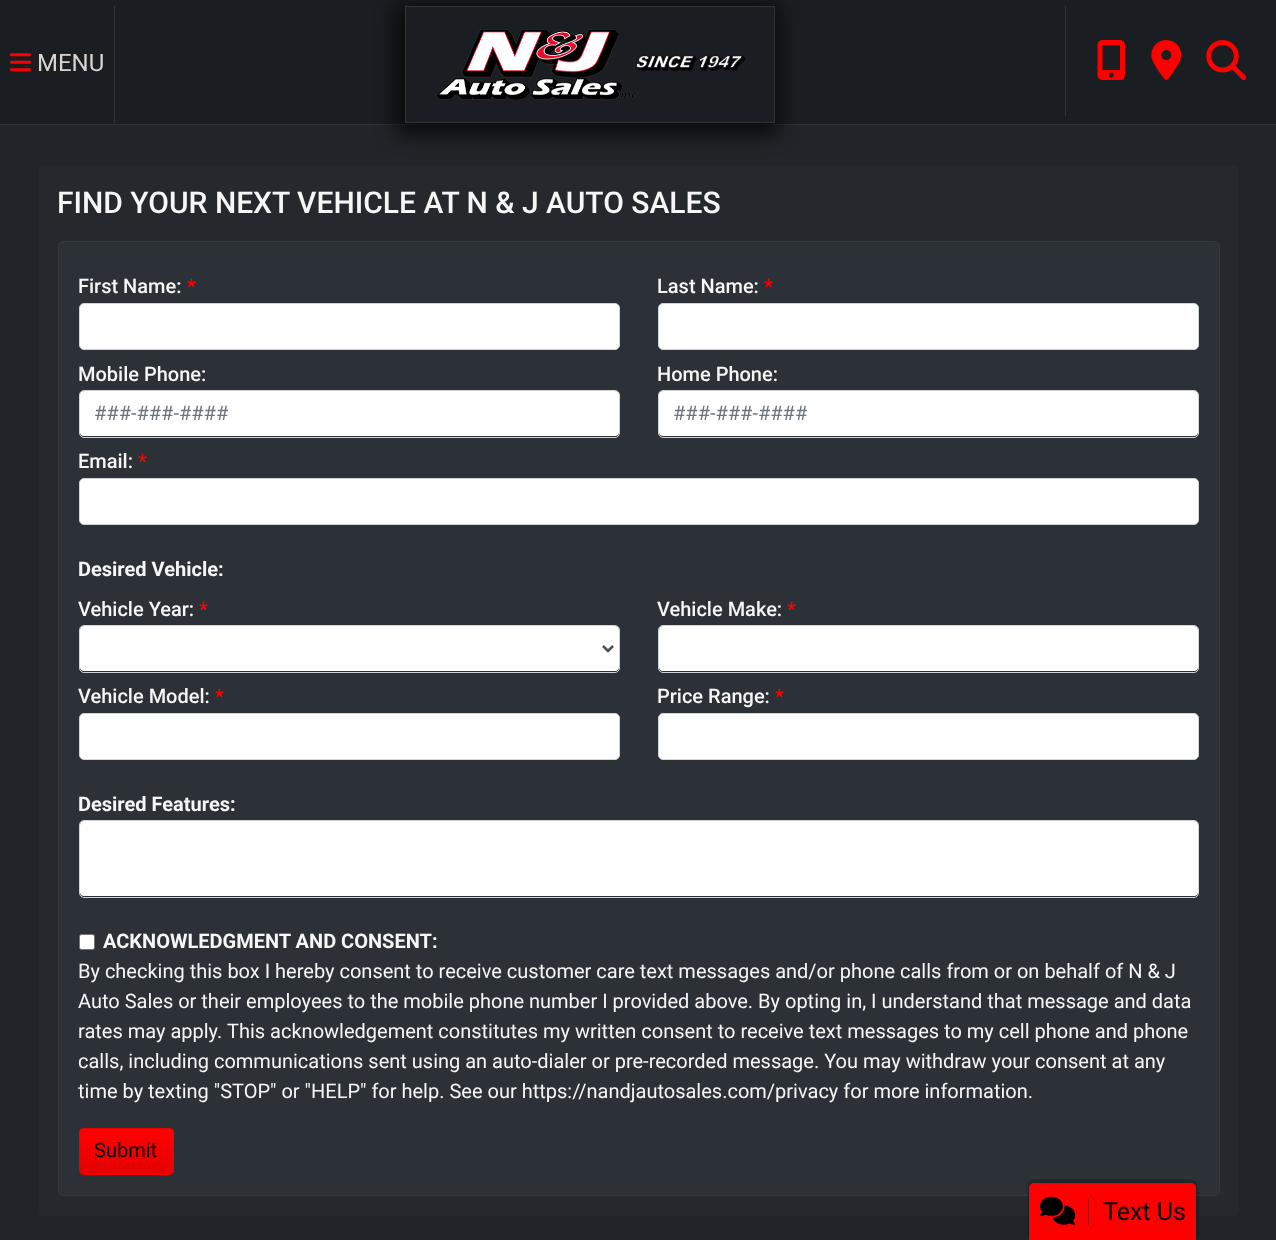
<svg xmlns="http://www.w3.org/2000/svg" width="1276" height="1240" viewBox="0 0 1276 1240">
  <defs>
    <clipPath id="clip1"><rect x="79" y="1128" width="95" height="47" rx="5"/></clipPath>
    <linearGradient id="g1" gradientUnits="userSpaceOnUse" x1="126" y1="1084" x2="126" y2="1129"><stop offset="0" stop-color="rgb(0,0,0)" stop-opacity="0"/><stop offset="1" stop-color="rgb(0,0,0)" stop-opacity="0.1"/></linearGradient>
    <linearGradient id="g2" gradientUnits="userSpaceOnUse" x1="126" y1="1129" x2="126" y2="1174"><stop offset="0" stop-color="rgb(0,0,0)" stop-opacity="0"/><stop offset="1" stop-color="rgb(0,0,0)" stop-opacity="0.1"/></linearGradient>
  </defs>
  <rect width="100%" height="100%" fill="rgb(33,37,41)"/>
  <rect x="0" y="0" width="1276" height="124" fill="rgb(26,29,33)"/>
  <rect x="0" y="124" width="1276" height="1" fill="rgb(48,51,55)"/>
  <rect x="114" y="6" width="1" height="117" fill="rgb(48,51,55)"/>
  <image x="10" y="53" width="21" height="19" href="pic1.png"/>
  <text x="37" y="71" font-family="Roboto" font-size="24" fill="rgb(216,213,209)">MENU</text>
  <rect x="396" y="6" width="383" height="129" fill="rgba(0,0,0,0.7)" filter="blur(9.5px)"/>
  <rect x="405.5" y="6.5" width="369" height="116" fill="rgb(26,29,33)" stroke="rgb(48,51,55)"/>
  <image x="435" y="29" width="311" height="71" href="pic2.png"/>
  <rect x="1065" y="6" width="1" height="110" fill="rgb(48,51,55)"/>
  <image x="1097" y="40" width="28" height="40" href="pic3.png"/>
  <image x="1151" y="40" width="31" height="40" href="pic4.png"/>
  <image x="1206" y="40" width="41" height="40" href="pic5.png"/>
  <rect x="39" y="165" width="1200" height="1051" rx="5" fill="rgb(37,41,46)"/>
  <text x="57" y="213" font-family="Roboto" font-size="30" font-weight="500" fill="rgb(246,246,246)">FIND YOUR NEXT VEHICLE AT N &amp; J AUTO SALES</text>
  <rect x="58.5" y="241.5" width="1161" height="954" rx="4.5" fill="rgba(49,55,61,0.6)" stroke="rgb(52,56,60)"/>
  <text x="78" y="293" font-family="Roboto" font-size="20" font-weight="500" fill="rgb(246,246,246)">First Name:</text>
  <text x="187" y="293" font-family="Roboto" font-size="20" font-weight="500" fill="rgb(255,0,0)">*</text>
  <rect x="79.5" y="303.5" width="540" height="46" rx="4.5" fill="rgb(255,255,255)" stroke="rgb(206,212,218)"/>
  <text x="657" y="293" font-family="Roboto" font-size="20" font-weight="500" fill="rgb(246,246,246)">Last Name:</text>
  <text x="764" y="293" font-family="Roboto" font-size="20" font-weight="500" fill="rgb(255,0,0)">*</text>
  <rect x="658.5" y="303.5" width="540" height="46" rx="4.5" fill="rgb(255,255,255)" stroke="rgb(206,212,218)"/>
  <text x="78" y="381" font-family="Roboto" font-size="20" font-weight="500" fill="rgb(246,246,246)">Mobile Phone:</text>
  <rect x="80" y="391" width="539" height="45" rx="4" fill="rgb(255,255,255)"/>
  <rect x="79.5" y="390.5" width="540" height="47" rx="4.5" fill="none" stroke="rgb(206,212,218)"/>
  <text x="94" y="420" font-family="Roboto" font-size="20" fill="rgb(108,117,125)">###-###-####</text>
  <text x="657" y="381" font-family="Roboto" font-size="20" font-weight="500" fill="rgb(246,246,246)">Home Phone:</text>
  <rect x="659" y="391" width="539" height="45" rx="4" fill="rgb(255,255,255)"/>
  <rect x="658.5" y="390.5" width="540" height="47" rx="4.5" fill="none" stroke="rgb(206,212,218)"/>
  <text x="673" y="420" font-family="Roboto" font-size="20" fill="rgb(108,117,125)">###-###-####</text>
  <text x="78" y="468" font-family="Roboto" font-size="20" font-weight="500" fill="rgb(246,246,246)">Email:</text>
  <text x="138" y="468" font-family="Roboto" font-size="20" font-weight="500" fill="rgb(255,0,0)">*</text>
  <rect x="79.5" y="478.5" width="1119" height="46" rx="4.5" fill="rgb(255,255,255)" stroke="rgb(206,212,218)"/>
  <text x="78" y="576" font-family="Roboto" font-size="20" font-weight="bold" fill="rgb(246,246,246)">Desired Vehicle:</text>
  <text x="78" y="616" font-family="Roboto" font-size="20" font-weight="500" fill="rgb(246,246,246)">Vehicle Year:</text>
  <text x="199" y="616" font-family="Roboto" font-size="20" font-weight="500" fill="rgb(255,0,0)">*</text>
  <rect x="80" y="626" width="539" height="45" rx="4" fill="rgb(255,255,255)"/>
  <rect x="79.5" y="625.5" width="540" height="47" rx="4.5" fill="none" stroke="rgb(206,212,218)"/>
  <path d="M603 646L608 651L613 646" fill="none" stroke="rgb(73,80,87)" stroke-width="2.5"/>
  <text x="657" y="616" font-family="Roboto" font-size="20" font-weight="500" fill="rgb(246,246,246)">Vehicle Make:</text>
  <text x="787" y="616" font-family="Roboto" font-size="20" font-weight="500" fill="rgb(255,0,0)">*</text>
  <rect x="659" y="626" width="539" height="45" rx="4" fill="rgb(255,255,255)"/>
  <rect x="658.5" y="625.5" width="540" height="47" rx="4.5" fill="none" stroke="rgb(206,212,218)"/>
  <text x="78" y="703" font-family="Roboto" font-size="20" font-weight="500" fill="rgb(246,246,246)">Vehicle Model:</text>
  <text x="215" y="703" font-family="Roboto" font-size="20" font-weight="500" fill="rgb(255,0,0)">*</text>
  <rect x="79.5" y="713.5" width="540" height="46" rx="4.5" fill="rgb(255,255,255)" stroke="rgb(206,212,218)"/>
  <text x="657" y="703" font-family="Roboto" font-size="20" font-weight="500" fill="rgb(246,246,246)">Price Range:</text>
  <text x="775" y="703" font-family="Roboto" font-size="20" font-weight="500" fill="rgb(255,0,0)">*</text>
  <rect x="658.5" y="713.5" width="540" height="46" rx="4.5" fill="rgb(255,255,255)" stroke="rgb(206,212,218)"/>
  <text x="78" y="811" font-family="Roboto" font-size="20" font-weight="bold" fill="rgb(246,246,246)">Desired Features:</text>
  <rect x="80" y="821" width="1118" height="75" rx="4" fill="rgb(255,255,255)"/>
  <rect x="79.5" y="820.5" width="1119" height="77" rx="4.5" fill="none" stroke="rgb(206,212,218)"/>
  <rect x="79.5" y="934.5" width="15" height="15" rx="2" fill="rgb(255,255,255)" stroke="rgb(118,118,118)"/>
  <text x="103" y="948" font-family="Roboto" font-size="20" font-weight="bold" fill="rgb(246,246,246)">ACKNOWLEDGMENT AND CONSENT:</text>
  <g font-family="Roboto" font-size="20" fill="rgb(246,246,246)">
    <text>
      <tspan x="78" y="978">By checking this box I hereby consent to receive customer care text messages and/or phone calls from or on behalf of N &amp; J</tspan>
      <tspan x="78" y="1008">Auto Sales or their employees to the mobile phone number I provided above. By opting in, I understand that message and data</tspan>
      <tspan x="78" y="1038">rates may apply.</tspan>
    </text>
    <text x="227" y="1038">This acknowledgement constitutes my written consent to receive text messages to my cell phone and phone</text>
    <text>
      <tspan x="78" y="1068">calls, including communications sent using an auto-dialer or pre-recorded message. You may withdraw your consent at any</tspan>
      <tspan x="78" y="1098">time by texting "STOP" or "HELP" for help. See our https://nandjautosales.com/privacy for more information.</tspan>
    </text>
  </g>
  <rect x="79" y="1128" width="95" height="47" rx="5" fill="rgb(255,0,0)"/>
  <g clip-path="url(#clip1)">
    <rect x="79" y="1128" width="95" height="1" fill="url(#g1)"/>
    <rect x="79" y="1139" width="95" height="35" fill="url(#g2)"/>
  </g>
  <text x="94" y="1157" font-family="Roboto" font-size="20" fill="rgb(0,0,0)">Submit</text>
  <rect x="1028" y="1180" width="170" height="60" rx="6" fill="rgba(0,0,0,0.25)" filter="blur(1px)"/>
  <path d="M1034 1183H1191C1194 1183 1196 1185 1196 1188V1240H1029V1188C1029 1185 1031 1183 1034 1183Z" fill="rgb(255,0,0)"/>
  <rect x="1088" y="1198" width="1" height="28" fill="rgb(179,0,0)"/>
  <image x="1040" y="1196" width="36" height="29" href="pic6.png"/>
  <text x="1103" y="1220" font-family="Roboto" font-size="25" fill="rgb(0,0,0)">Text Us</text>
</svg>
